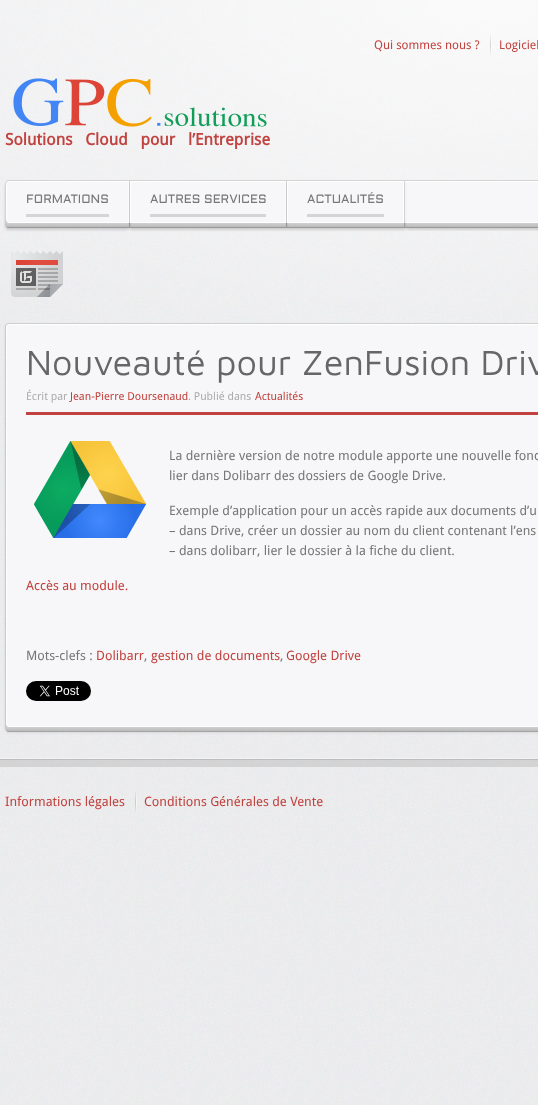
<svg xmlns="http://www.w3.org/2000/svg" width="538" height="1105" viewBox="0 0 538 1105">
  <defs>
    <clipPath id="clip1"><path d="M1 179H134V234H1ZM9 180H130V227H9C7 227 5 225 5 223V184C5 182 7 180 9 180Z" clip-rule="evenodd"/></clipPath>
    <clipPath id="clip2"><path d="M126 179H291V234H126ZM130 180H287V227H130Z" clip-rule="evenodd"/></clipPath>
    <clipPath id="clip3"><rect x="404" y="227" width="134" height="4"/></clipPath>
    <clipPath id="clip4"><path d="M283 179H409V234H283ZM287 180H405V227H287Z" clip-rule="evenodd"/></clipPath>
  </defs>
  <rect width="100%" height="100%" fill="rgb(255,255,255)"/>
  <image x="0" y="0" width="538" height="1105" href="pic1.png"/>
  <image x="0" y="758" width="538" height="9" href="pic2.png"/>
  <text x="374" y="49" font-family="Droid Sans" font-size="12" fill="rgb(193,67,63)">Qui sommes nous ?</text>
  <image x="490" y="35" width="2" height="20" href="pic3.png"/>
  <text x="499" y="49" font-family="Droid Sans" font-size="12" fill="rgb(193,67,63)">Logiciel</text>
  <image x="13" y="78" width="254" height="49" href="pic4.png"/>
  <text x="5" y="145" font-family="Droid Sans" font-size="16.25" font-weight="bold" fill="rgb(193,67,63)" xml:space="preserve">Solutions   Cloud   pour   l’Entreprise</text>
  <image x="5" y="219" width="533" height="8" href="pic5.png"/>
  <rect x="7" y="227" width="531" height="1" fill="rgba(0,0,0,0.25)"/>
  <g clip-path="url(#clip1)">
    <rect x="5" y="183" width="125" height="47" rx="4" fill="rgba(0,0,0,0.15)" filter="blur(1px)"/>
  </g>
  <image x="129" y="180" width="1" height="47" href="pic6.png"/>
  <path d="M9 181H129V223H9C7 223 6 221 6 219V184C6 182 7 181 9 181Z" fill="rgb(247,247,249)"/>
  <path d="M9 181.5H128.5V222.5H9C7.5 222.5 6.5 221 6.5 219V184C6.5 182.5 7.5 181.5 9 181.5Z" fill="none" stroke="rgb(255,255,255)"/>
  <path d="M9 180H129V223H9C7 223 5 221 5 219V184C5 182 7 180 9 180ZM9 181H129V223H9C7 223 6 221 6 219V184C6 182 7 181 9 181Z" fill="rgb(211,211,211)" fill-rule="evenodd"/>
  <rect x="26" y="214" width="83" height="3" fill="rgb(213,213,213)"/>
  <text x="26" y="203" font-family="Aldrich" font-size="12" fill="rgb(119,119,119)">FORMATIONS</text>
  <g clip-path="url(#clip2)">
    <rect x="130" y="183" width="157" height="47" fill="rgba(0,0,0,0.15)" filter="blur(1px)"/>
  </g>
  <image x="286" y="180" width="1" height="47" href="pic6.png"/>
  <rect x="130.5" y="181.5" width="155" height="41" fill="rgb(247,247,249)" stroke="rgb(255,255,255)"/>
  <rect x="130" y="180" width="156" height="1" fill="rgb(211,211,211)"/>
  <rect x="150" y="214" width="116" height="3" fill="rgb(213,213,213)"/>
  <text x="150" y="203" font-family="Aldrich" font-size="12" fill="rgb(119,119,119)">AUTRES SERVICES</text>
  <g clip-path="url(#clip3)">
    <rect x="405" y="183" width="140" height="47" rx="4" fill="rgba(0,0,0,0.15)" filter="blur(1px)"/>
  </g>
  <path d="M405 181H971C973 181 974 182 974 184V219C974 221 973 223 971 223H405Z" fill="rgb(247,247,249)"/>
  <path d="M405.5 181.5H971C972.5 181.5 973.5 182.5 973.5 184V219C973.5 221 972.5 222.5 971 222.5H405.5Z" fill="none" stroke="rgb(255,255,255)"/>
  <path d="M405 180H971C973 180 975 182 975 184V219C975 221 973 223 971 223H405ZM405 181H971C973 181 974 182 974 184V219C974 221 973 223 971 223H405Z" fill="rgb(211,211,211)" fill-rule="evenodd"/>
  <g clip-path="url(#clip4)">
    <rect x="287" y="183" width="118" height="47" fill="rgba(0,0,0,0.15)" filter="blur(1px)"/>
  </g>
  <image x="404" y="180" width="1" height="47" href="pic6.png"/>
  <rect x="287.5" y="181.5" width="116" height="41" fill="rgb(247,247,249)" stroke="rgb(255,255,255)"/>
  <rect x="287" y="180" width="117" height="1" fill="rgb(211,211,211)"/>
  <rect x="307" y="214" width="77" height="3" fill="rgb(213,213,213)"/>
  <text x="307" y="203" font-family="Aldrich" font-size="12" fill="rgb(119,119,119)">ACTUALITÉS</text>
  <image x="11" y="251" width="52" height="46" href="pic7.png"/>
  <rect x="5" y="324" width="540" height="409" rx="4" fill="rgba(0,0,0,0.08)" filter="blur(1px)"/>
  <image x="6" y="724" width="532" height="7" href="pic8.png"/>
  <path d="M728.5 730.5C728 731 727 731.5 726 731.5H9C8 731.5 7 731 6.5 730.5" fill="none" stroke="rgba(0,0,0,0.25)"/>
  <path d="M6.5 730.5L5.5 728.5V327C5.5 325 7 323.5 9 323.5H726C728 323.5 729.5 325 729.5 327V728.5L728.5 730.5" fill="none" stroke="rgba(0,0,0,0.1)"/>
  <rect x="6.5" y="324.5" width="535" height="402" rx="2.5" fill="rgb(247,247,249)" stroke="rgb(255,255,255)"/>
  <rect x="26" y="412" width="512" height="3" fill="rgb(193,67,63)"/>
  <text x="26" y="375" font-family="Maven Pro" font-size="36" fill="rgb(102,102,102)">Nouveauté pour ZenFusion Driv</text>
  <text x="26" y="400" font-family="Droid Sans" font-size="11" fill="rgb(172,172,172)">Écrit par</text>
  <text x="70" y="400" font-family="Droid Sans" font-size="11" fill="rgb(193,67,63)">Jean-Pierre Doursenaud</text>
  <text x="188" y="400" font-family="Droid Sans" font-size="11" fill="rgb(172,172,172)">. Publié dans</text>
  <text x="255" y="400" font-family="Droid Sans" font-size="11" fill="rgb(193,67,63)">Actualités</text>
  <image x="34" y="441" width="113" height="97" href="pic9.png"/>
  <g font-family="Droid Sans" font-size="13" fill="rgb(119,119,119)">
    <text>
      <tspan x="169" y="460">La dernière version de notre module apporte une nouvelle fonc</tspan>
      <tspan x="169" y="480">lier dans Dolibarr des dossiers de Google Drive.</tspan>
    </text>
    <text>
      <tspan x="169" y="515">Exemple d’application pour un accès rapide aux documents d’u</tspan>
      <tspan x="169" y="535">– dans Drive, créer un dossier au nom du client contenant l’ens</tspan>
      <tspan x="169" y="555">– dans dolibarr, lier le dossier à la fiche du client.</tspan>
    </text>
  </g>
  <text x="26" y="590" font-family="Droid Sans" font-size="13" fill="rgb(193,67,63)">Accès au module.</text>
  <text x="26" y="660" font-family="Droid Sans" font-size="13" fill="rgb(119,119,119)">Mots-clefs :</text>
  <text x="96" y="660" font-family="Droid Sans" font-size="13" fill="rgb(193,67,63)">Dolibarr</text>
  <text x="144" y="660" font-family="Droid Sans" font-size="13" fill="rgb(119,119,119)">,</text>
  <text x="151" y="660" font-family="Droid Sans" font-size="13" fill="rgb(193,67,63)">gestion de documents</text>
  <text x="280" y="660" font-family="Droid Sans" font-size="13" fill="rgb(119,119,119)">,</text>
  <text x="286" y="660" font-family="Droid Sans" font-size="13" fill="rgb(193,67,63)">Google Drive</text>
  <image x="26" y="681" width="65" height="20" href="pic10.png"/>
  <text x="5" y="806" font-family="Droid Sans" font-size="13" fill="rgb(193,67,63)">Informations légales</text>
  <image x="135" y="792" width="2" height="20" href="pic11.png"/>
  <text x="144" y="806" font-family="Droid Sans" font-size="13" fill="rgb(193,67,63)">Conditions Générales de Vente</text>
</svg>
